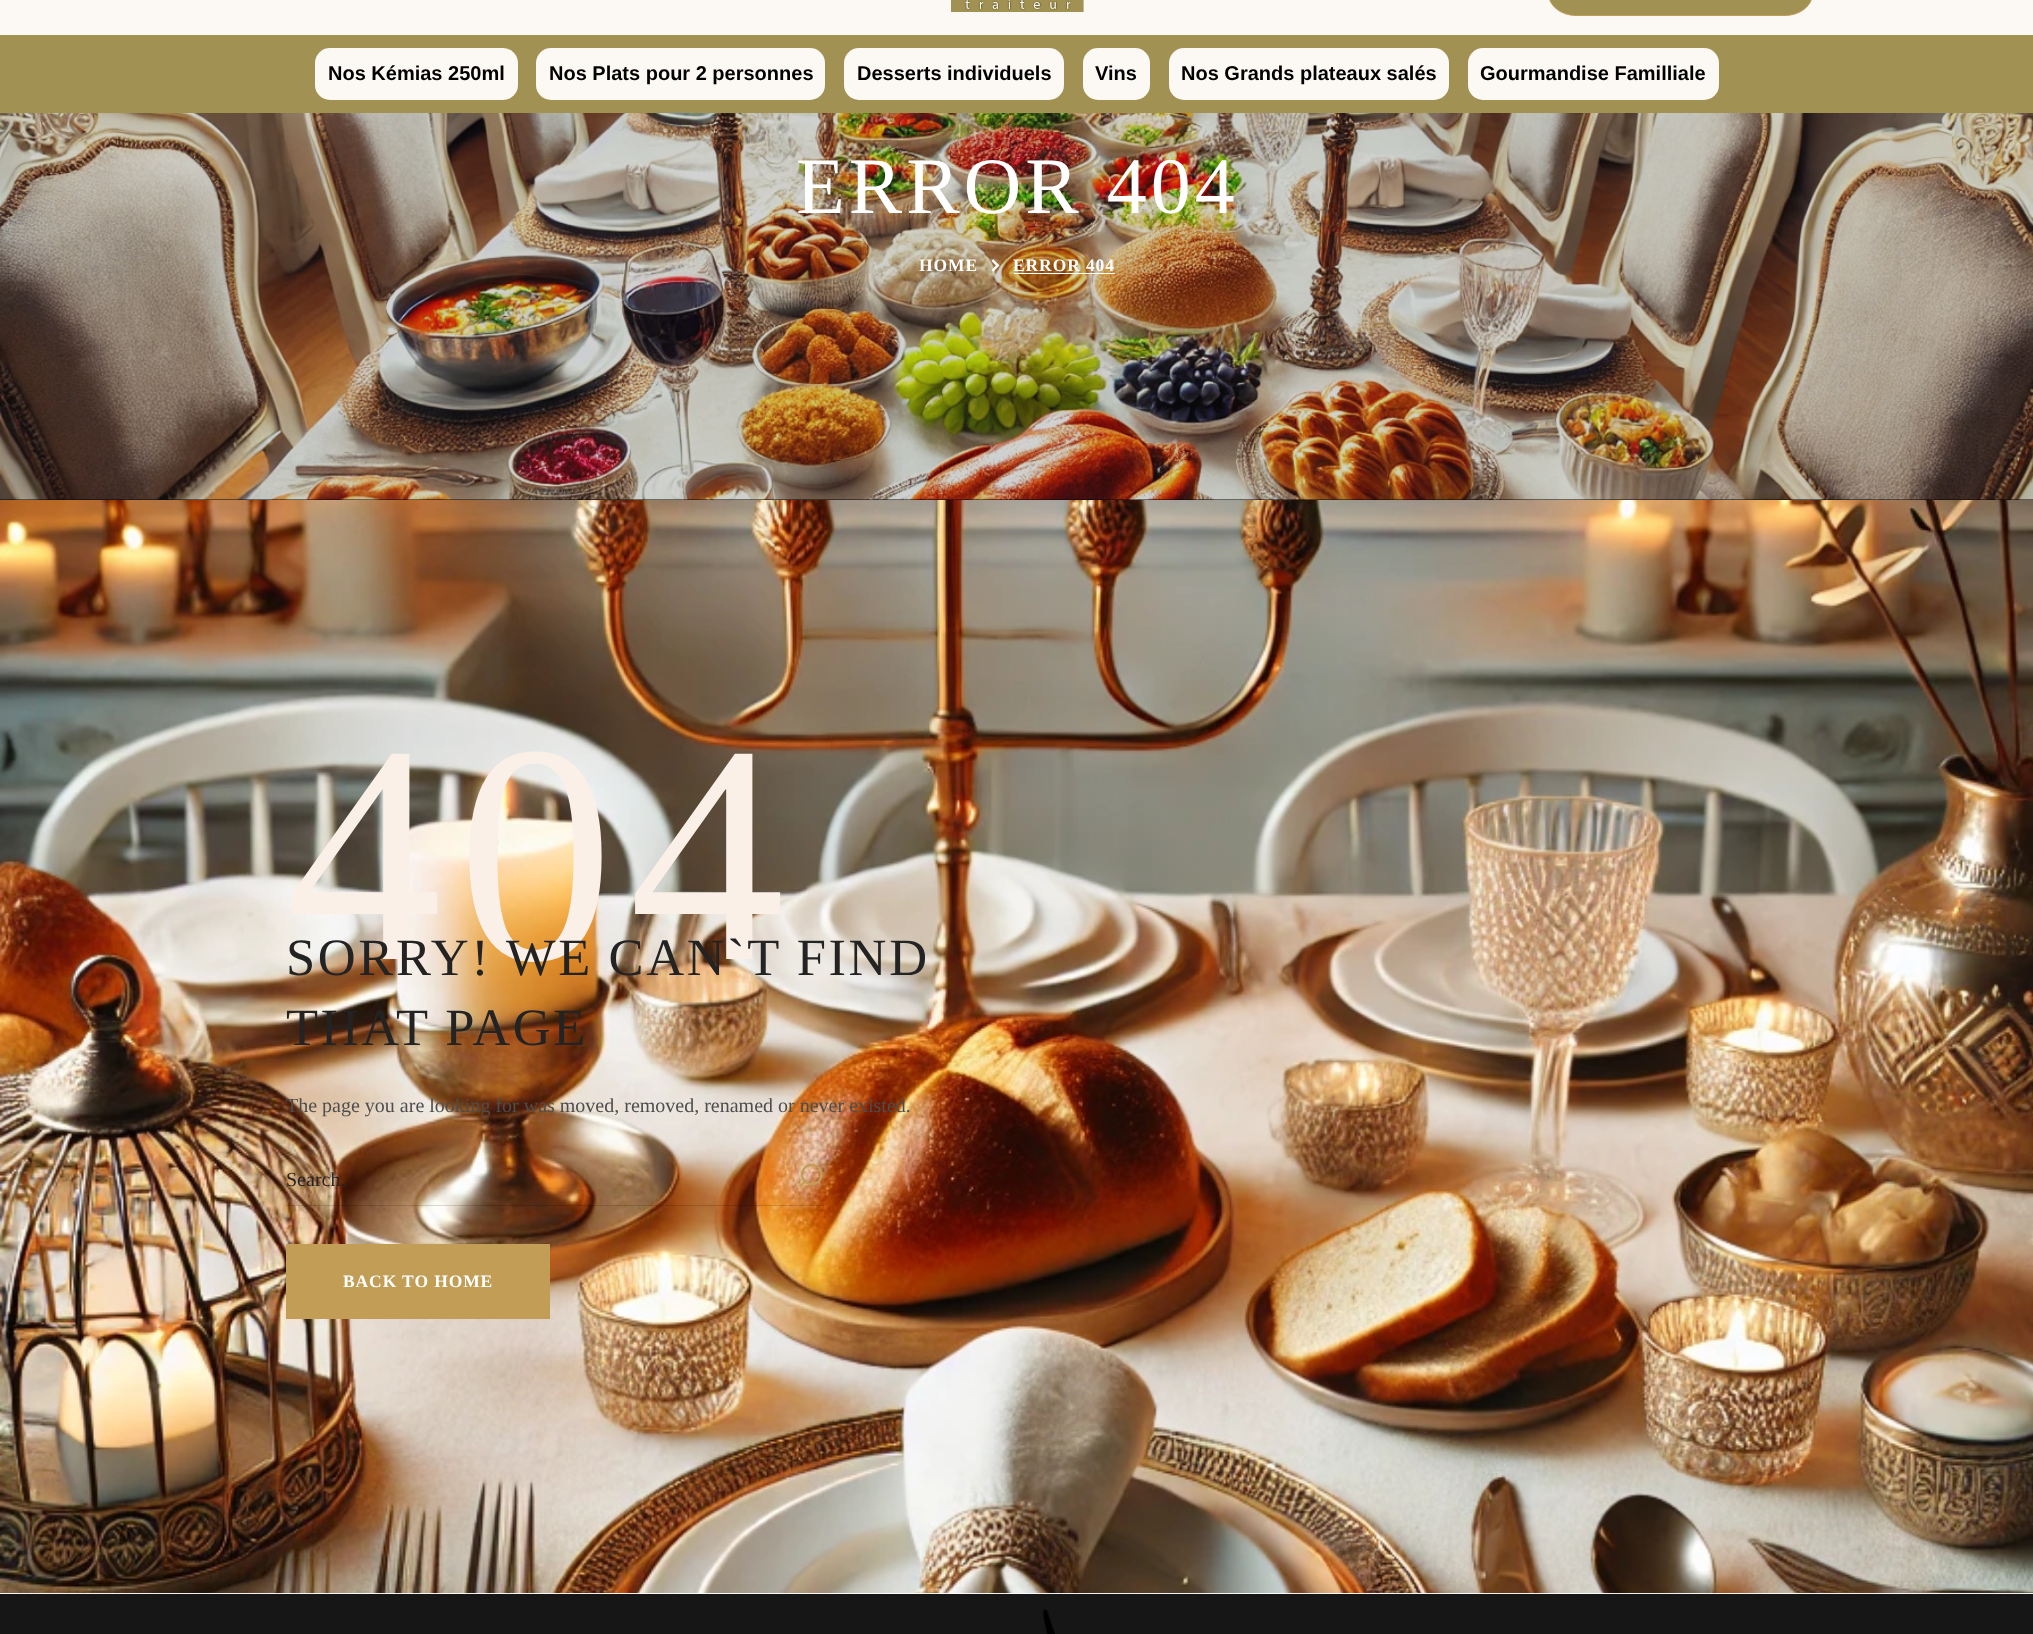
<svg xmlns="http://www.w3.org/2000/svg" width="2033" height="1634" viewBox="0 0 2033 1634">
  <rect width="100%" height="100%" fill="rgb(255,255,255)"/>
  <rect x="0" y="0" width="2033" height="35" fill="rgb(252,248,244)"/>
  <image x="951" y="0" width="133" height="12" href="pic1.png"/>
  <rect x="1548.5" y="-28.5" width="264" height="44" rx="27.5" fill="rgb(161,146,84)" stroke="rgb(193,157,86)"/>
  <rect x="0" y="35" width="2033" height="78" fill="rgb(161,146,84)"/>
  <rect x="315" y="48" width="203" height="52" rx="15" fill="rgb(252,248,244)"/>
  <text x="328" y="80" font-family="Liberation Sans" font-size="20" font-weight="bold" fill="rgb(0,0,0)">Nos Kémias 250ml</text>
  <rect x="536" y="48" width="289" height="52" rx="15" fill="rgb(252,248,244)"/>
  <text x="549" y="80" font-family="Liberation Sans" font-size="20" font-weight="bold" fill="rgb(0,0,0)">Nos Plats pour 2 personnes</text>
  <rect x="844" y="48" width="220" height="52" rx="15" fill="rgb(252,248,244)"/>
  <text x="857" y="80" font-family="Liberation Sans" font-size="20" font-weight="bold" fill="rgb(0,0,0)">Desserts individuels</text>
  <rect x="1083" y="48" width="67" height="52" rx="15" fill="rgb(252,248,244)"/>
  <text x="1095" y="80" font-family="Liberation Sans" font-size="20" font-weight="bold" fill="rgb(0,0,0)">Vins</text>
  <rect x="1169" y="48" width="280" height="52" rx="15" fill="rgb(252,248,244)"/>
  <text x="1181" y="80" font-family="Liberation Sans" font-size="20" font-weight="bold" fill="rgb(0,0,0)">Nos Grands plateaux salés</text>
  <rect x="1468" y="48" width="251" height="52" rx="15" fill="rgb(252,248,244)"/>
  <text x="1480" y="80" font-family="Liberation Sans" font-size="20" font-weight="bold" fill="rgb(0,0,0)">Gourmandise Familliale</text>
  <rect x="0" y="499" width="2033" height="1" fill="rgb(0,0,0)"/>
  <image x="0" y="113" width="2033" height="387" href="pic2.png"/>
  <rect x="0" y="113" width="2033" height="387" fill="rgba(35,35,35,0.2)"/>
  <text x="796" y="213" font-family="Liberation Serif" font-size="80" letter-spacing="4" fill="rgb(255,255,255)">ERROR 404</text>
  <text x="919" y="271" font-family="Liberation Serif" font-size="17.5" font-weight="bold" letter-spacing="0.9" fill="rgb(255,255,255)">HOME</text>
  <image x="991" y="259" width="9" height="13" href="pic3.png"/>
  <text x="1013" y="271" font-family="Liberation Serif" font-size="17.5" font-weight="bold" letter-spacing="0.9" fill="rgb(255,255,255)">ERROR 404</text>
  <rect x="1014" y="273" width="101" height="1" fill="rgb(255,255,255)"/>
  <image x="0" y="500" width="2033" height="1094" href="pic4.png"/>
  <text x="286" y="959" font-family="Liberation Serif" font-size="312" letter-spacing="15.5" fill="rgb(250,240,231)">404</text>
  <g font-family="Liberation Serif" font-size="52.5" letter-spacing="2.6" fill="rgb(35,35,35)">
    <text>
      <tspan x="286" y="975">SORRY! WE CAN`T FIND</tspan>
      <tspan x="286" y="1045">THAT PAGE</tspan>
    </text>
  </g>
  <text x="286" y="1112" font-family="Liberation Serif" font-size="20" fill="rgb(77,77,77)">The page you are looking for was moved, removed, renamed or never existed.</text>
  <rect x="286" y="1205" width="538" height="1" fill="rgba(0,0,0,0.15)"/>
  <text x="286" y="1186" font-family="Liberation Serif" font-size="20" fill="rgb(35,35,35)">Search.</text>
  <image x="799" y="1163" width="24" height="25" href="pic5.png"/>
  <rect x="286" y="1244" width="264" height="75" fill="rgb(193,157,86)"/>
  <text x="343" y="1287" font-family="Liberation Serif" font-size="17.5" font-weight="bold" letter-spacing="0.9" fill="rgb(255,255,255)">BACK TO HOME</text>
  <rect x="0" y="1594" width="2033" height="40" fill="rgb(22,22,22)"/>
  <image x="1043" y="1609" width="12" height="25" href="pic6.png"/>
</svg>
